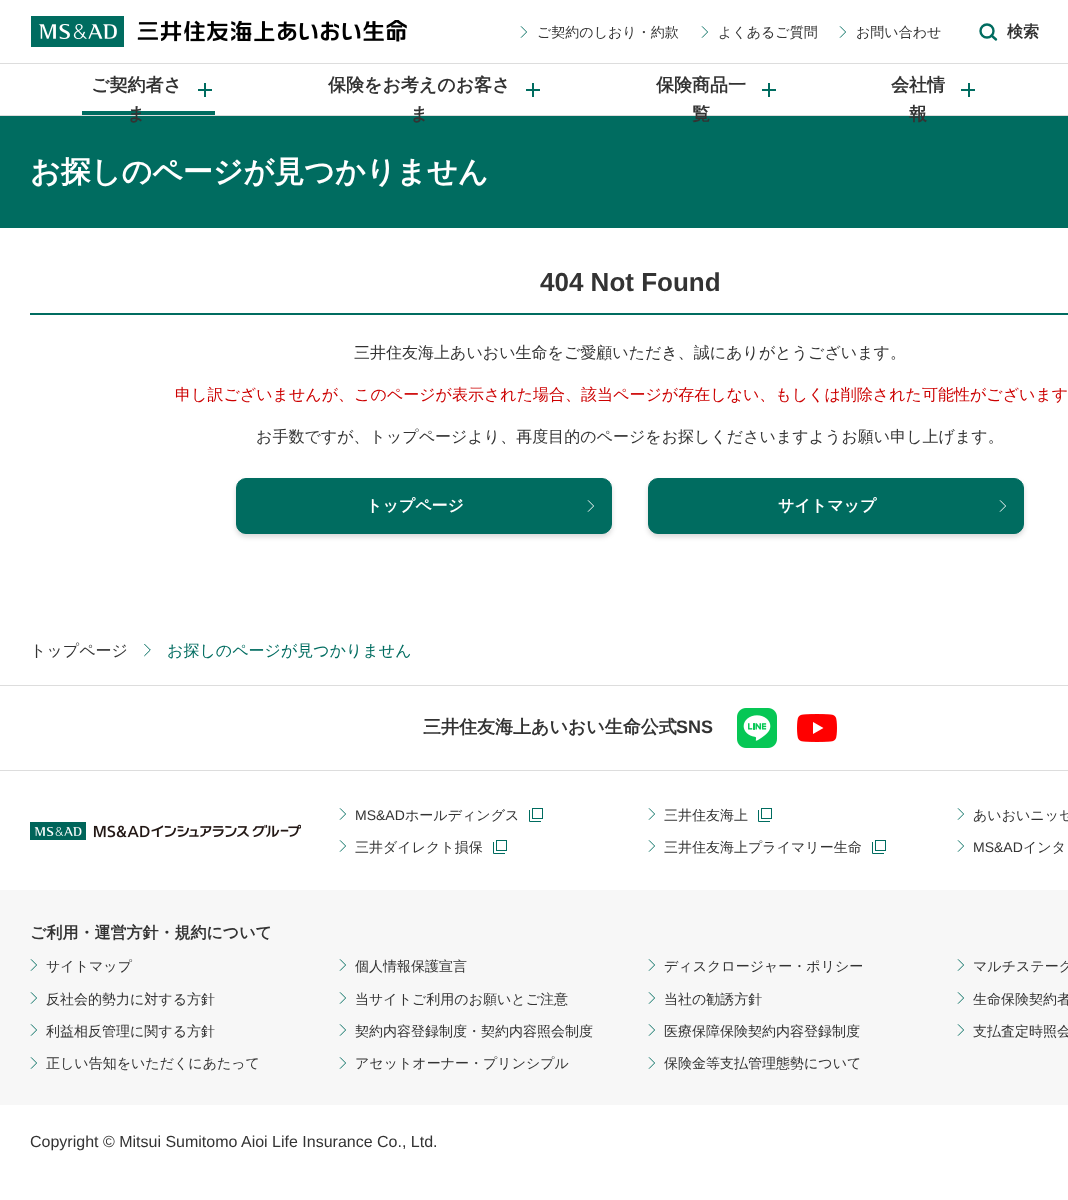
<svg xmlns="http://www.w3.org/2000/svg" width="1068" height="1200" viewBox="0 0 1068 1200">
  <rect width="100%" height="100%" fill="rgb(255,255,255)"/>
  <rect x="0" y="63" width="1068" height="1" fill="rgb(221,221,221)"/>
  <image x="31" y="16" width="376" height="31" href="pic1.png"/>
  <image x="520" y="26" width="7" height="12" href="pic2.png"/>
  <text x="537" y="37" font-family="WenQuanYi Zen Hei" font-size="14" font-weight="500" fill="rgb(51,51,51)">ご契約のしおり・約款</text>
  <image x="701" y="26" width="7" height="12" href="pic2.png"/>
  <text x="718" y="37" font-family="WenQuanYi Zen Hei" font-size="14" font-weight="500" fill="rgb(51,51,51)">よくあるご質問</text>
  <image x="839" y="26" width="7" height="12" href="pic2.png"/>
  <text x="856" y="37" font-family="WenQuanYi Zen Hei" font-size="14" font-weight="500" fill="rgb(51,51,51)">お問い合わせ</text>
  <circle cx="987" cy="31" r="6.5" fill="none" stroke="rgb(0,108,96)" stroke-width="2.4"/>
  <path d="M991.5 35.5L996 39.5" fill="none" stroke="rgb(0,108,96)" stroke-width="2.4" stroke-linecap="round"/>
  <text x="1007" y="37" font-family="WenQuanYi Zen Hei" font-size="16" font-weight="bold" fill="rgb(51,51,51)">検索</text>
  <rect x="0" y="115" width="1068" height="1" fill="rgb(221,221,221)"/>
  <rect x="82" y="111" width="133" height="4" fill="rgb(0,108,96)"/>
  <text x="91" y="91" font-family="WenQuanYi Zen Hei" font-size="18" font-weight="bold" fill="rgb(51,51,51)">ご契約者さ</text>
  <rect x="198" y="89" width="14" height="2" fill="rgb(0,108,96)"/>
  <rect x="204" y="83" width="2" height="14" fill="rgb(0,108,96)"/>
  <rect x="0" y="116" width="1068" height="112" fill="rgb(0,108,96)"/>
  <g font-family="WenQuanYi Zen Hei" font-size="18" font-weight="bold" fill="rgb(51,51,51)">
    <text x="127" y="120">ま</text>
    <text x="328" y="91">保険をお考えのお客さ</text>
  </g>
  <rect x="526" y="89" width="14" height="2" fill="rgb(0,108,96)"/>
  <rect x="532" y="83" width="2" height="14" fill="rgb(0,108,96)"/>
  <g font-family="WenQuanYi Zen Hei" font-size="18" font-weight="bold" fill="rgb(51,51,51)">
    <text x="410" y="120">ま</text>
    <text x="656" y="91">保険商品一</text>
  </g>
  <rect x="762" y="89" width="14" height="2" fill="rgb(0,108,96)"/>
  <rect x="768" y="83" width="2" height="14" fill="rgb(0,108,96)"/>
  <g font-family="WenQuanYi Zen Hei" font-size="18" font-weight="bold" fill="rgb(51,51,51)">
    <text x="692" y="120">覧</text>
    <text x="891" y="91">会社情</text>
  </g>
  <rect x="961" y="89" width="14" height="2" fill="rgb(0,108,96)"/>
  <rect x="968" y="83" width="2" height="14" fill="rgb(0,108,96)"/>
  <text x="909" y="120" font-family="WenQuanYi Zen Hei" font-size="18" font-weight="bold" fill="rgb(51,51,51)">報</text>
  <text x="30" y="182" font-family="WenQuanYi Zen Hei" font-size="30" font-weight="bold" fill="rgb(255,255,255)">お探しのページが見つかりません</text>
  <rect x="30" y="313" width="1038" height="2" fill="rgb(0,108,96)"/>
  <text x="540" y="291" font-family="Liberation Sans" font-size="26" font-weight="bold" fill="rgb(51,51,51)">404 Not Found</text>
  <text x="354" y="358" font-family="WenQuanYi Zen Hei" font-size="16" font-weight="500" fill="rgb(51,51,51)">三井住友海上あいおい生命をご愛顧いただき、誠にありがとうございます。</text>
  <text x="175" y="400" font-family="WenQuanYi Zen Hei" font-size="16" font-weight="500" fill="rgb(204,0,0)">申し訳ございませんが、このページが表示された場合、該当ページが存在しない、もしくは削除された可能性がございます</text>
  <text x="256" y="442" font-family="WenQuanYi Zen Hei" font-size="16" font-weight="500" fill="rgb(51,51,51)">お手数ですが、トップページより、再度目的のページをお探しくださいますようお願い申し上げます。</text>
  <rect x="236" y="481" width="376" height="56" rx="10" fill="rgba(0,0,0,0.15)" filter="blur(2.5px)"/>
  <rect x="236.5" y="478.5" width="375" height="55" rx="9.5" fill="rgb(0,108,96)" stroke="rgb(0,108,96)"/>
  <text x="366" y="511" font-family="WenQuanYi Zen Hei" font-size="16" font-weight="bold" fill="rgb(255,255,255)">トップページ</text>
  <image x="587" y="500" width="7" height="12" href="pic3.png"/>
  <rect x="648" y="481" width="376" height="56" rx="10" fill="rgba(0,0,0,0.15)" filter="blur(2.5px)"/>
  <rect x="648.5" y="478.5" width="375" height="55" rx="9.5" fill="rgb(0,108,96)" stroke="rgb(0,108,96)"/>
  <text x="778" y="511" font-family="WenQuanYi Zen Hei" font-size="16" font-weight="bold" fill="rgb(255,255,255)">サイトマップ</text>
  <image x="999" y="500" width="7" height="12" href="pic3.png"/>
  <text x="30" y="656" font-family="WenQuanYi Zen Hei" font-size="16" font-weight="500" fill="rgb(51,51,51)">トップページ</text>
  <image x="144" y="644" width="7" height="13" href="pic4.png"/>
  <text x="167" y="656" font-family="WenQuanYi Zen Hei" font-size="16" font-weight="500" fill="rgb(0,108,96)">お探しのページが見つかりません</text>
  <rect x="0" y="685" width="1068" height="1" fill="rgb(221,221,221)"/>
  <text x="423" y="733" font-family="WenQuanYi Zen Hei" font-size="18" font-weight="bold" fill="rgb(51,51,51)">三井住友海上あいおい生命公式</text>
  <text x="676" y="733" font-family="Liberation Sans" font-size="18" font-weight="bold" fill="rgb(51,51,51)">SNS</text>
  <image x="737" y="708" width="40" height="40" href="pic5.png"/>
  <image x="797" y="714" width="40" height="28" href="pic6.png"/>
  <rect x="0" y="770" width="1068" height="1" fill="rgb(221,221,221)"/>
  <image x="30" y="822" width="271" height="18" href="pic7.png"/>
  <image x="339" y="808" width="7" height="12" href="pic2.png"/>
  <text x="355" y="820" font-family="Liberation Sans" font-size="14" fill="rgb(51,51,51)">MS&amp;AD</text>
  <text x="405" y="820" font-family="WenQuanYi Zen Hei" font-size="14" font-weight="500" fill="rgb(51,51,51)">ホールディングス</text>
  <image x="529" y="808" width="14" height="14" href="pic8.png"/>
  <image x="648" y="808" width="7" height="12" href="pic2.png"/>
  <text x="664" y="820" font-family="WenQuanYi Zen Hei" font-size="14" font-weight="500" fill="rgb(51,51,51)">三井住友海上</text>
  <image x="758" y="808" width="14" height="14" href="pic8.png"/>
  <image x="957" y="808" width="7" height="12" href="pic2.png"/>
  <text x="973" y="820" font-family="WenQuanYi Zen Hei" font-size="14" font-weight="500" fill="rgb(51,51,51)">あいおいニッセ</text>
  <image x="339" y="840" width="7" height="12" href="pic2.png"/>
  <text x="355" y="852" font-family="WenQuanYi Zen Hei" font-size="14" font-weight="500" fill="rgb(51,51,51)">三井ダイレクト損保</text>
  <image x="493" y="840" width="14" height="14" href="pic8.png"/>
  <image x="648" y="840" width="7" height="12" href="pic2.png"/>
  <text x="664" y="852" font-family="WenQuanYi Zen Hei" font-size="14" font-weight="500" fill="rgb(51,51,51)">三井住友海上プライマリー生命</text>
  <image x="872" y="840" width="14" height="14" href="pic8.png"/>
  <image x="957" y="840" width="7" height="12" href="pic2.png"/>
  <text x="973" y="852" font-family="Liberation Sans" font-size="14" fill="rgb(51,51,51)">MS&amp;AD</text>
  <text x="1023" y="852" font-family="WenQuanYi Zen Hei" font-size="14" font-weight="500" fill="rgb(51,51,51)">インタ</text>
  <rect x="0" y="890" width="1068" height="215" fill="rgb(247,247,247)"/>
  <text x="30" y="938" font-family="WenQuanYi Zen Hei" font-size="16" font-weight="bold" fill="rgb(51,51,51)">ご利用・運営方針・規約について</text>
  <image x="30" y="959" width="7" height="12" href="pic9.png"/>
  <text x="46" y="971" font-family="WenQuanYi Zen Hei" font-size="14" font-weight="500" fill="rgb(51,51,51)">サイトマップ</text>
  <image x="339" y="959" width="7" height="12" href="pic9.png"/>
  <text x="355" y="971" font-family="WenQuanYi Zen Hei" font-size="14" font-weight="500" fill="rgb(51,51,51)">個人情報保護宣言</text>
  <image x="648" y="959" width="7" height="12" href="pic9.png"/>
  <text x="664" y="971" font-family="WenQuanYi Zen Hei" font-size="14" font-weight="500" fill="rgb(51,51,51)">ディスクロージャー・ポリシー</text>
  <image x="957" y="959" width="7" height="12" href="pic9.png"/>
  <text x="973" y="971" font-family="WenQuanYi Zen Hei" font-size="14" font-weight="500" fill="rgb(51,51,51)">マルチステーク</text>
  <image x="30" y="992" width="7" height="12" href="pic9.png"/>
  <text x="46" y="1004" font-family="WenQuanYi Zen Hei" font-size="14" font-weight="500" fill="rgb(51,51,51)">反社会的勢力に対する方針</text>
  <image x="339" y="992" width="7" height="12" href="pic9.png"/>
  <text x="355" y="1004" font-family="WenQuanYi Zen Hei" font-size="14" font-weight="500" fill="rgb(51,51,51)">当サイトご利用のお願いとご注意</text>
  <image x="648" y="992" width="7" height="12" href="pic9.png"/>
  <text x="664" y="1004" font-family="WenQuanYi Zen Hei" font-size="14" font-weight="500" fill="rgb(51,51,51)">当社の勧誘方針</text>
  <image x="957" y="992" width="7" height="12" href="pic9.png"/>
  <text x="973" y="1004" font-family="WenQuanYi Zen Hei" font-size="14" font-weight="500" fill="rgb(51,51,51)">生命保険契約者</text>
  <image x="30" y="1024" width="7" height="12" href="pic9.png"/>
  <text x="46" y="1036" font-family="WenQuanYi Zen Hei" font-size="14" font-weight="500" fill="rgb(51,51,51)">利益相反管理に関する方針</text>
  <image x="339" y="1024" width="7" height="12" href="pic9.png"/>
  <text x="355" y="1036" font-family="WenQuanYi Zen Hei" font-size="14" font-weight="500" fill="rgb(51,51,51)">契約内容登録制度・契約内容照会制度</text>
  <image x="648" y="1024" width="7" height="12" href="pic9.png"/>
  <text x="664" y="1036" font-family="WenQuanYi Zen Hei" font-size="14" font-weight="500" fill="rgb(51,51,51)">医療保障保険契約内容登録制度</text>
  <image x="957" y="1024" width="7" height="12" href="pic9.png"/>
  <text x="973" y="1036" font-family="WenQuanYi Zen Hei" font-size="14" font-weight="500" fill="rgb(51,51,51)">支払査定時照会</text>
  <image x="30" y="1057" width="7" height="12" href="pic9.png"/>
  <text x="46" y="1068" font-family="WenQuanYi Zen Hei" font-size="14" font-weight="500" fill="rgb(51,51,51)">正しい告知をいただくにあたって</text>
  <image x="339" y="1057" width="7" height="12" href="pic9.png"/>
  <text x="355" y="1068" font-family="WenQuanYi Zen Hei" font-size="14" font-weight="500" fill="rgb(51,51,51)">アセットオーナー・プリンシプル</text>
  <image x="648" y="1057" width="7" height="12" href="pic9.png"/>
  <text x="664" y="1068" font-family="WenQuanYi Zen Hei" font-size="14" font-weight="500" fill="rgb(51,51,51)">保険金等支払管理態勢について</text>
  <text x="30" y="1147" font-family="Liberation Sans" font-size="16" fill="rgb(51,51,51)">Copyright © Mitsui Sumitomo Aioi Life Insurance Co., Ltd.</text>
</svg>
